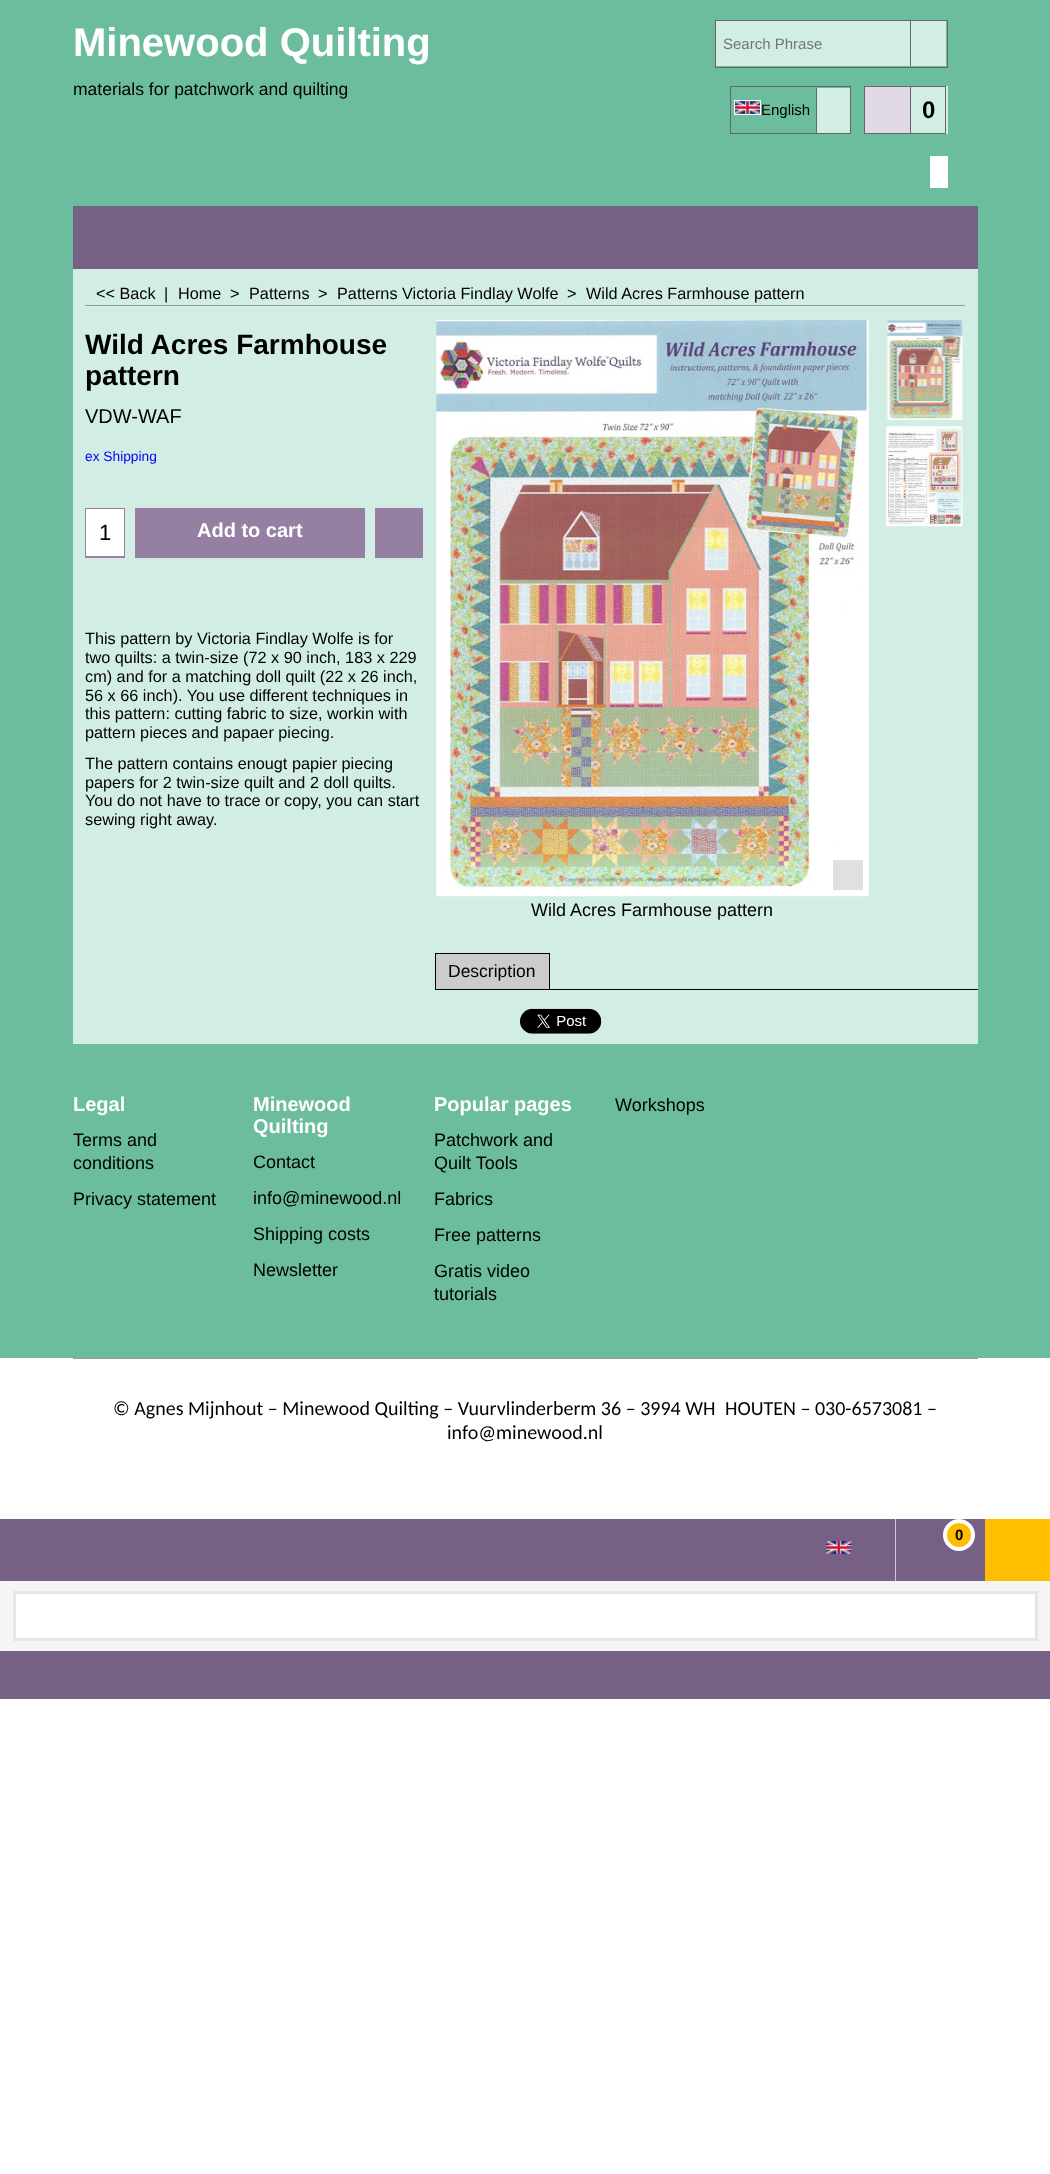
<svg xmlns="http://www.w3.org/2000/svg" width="1050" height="2174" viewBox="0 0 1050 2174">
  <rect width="100%" height="100%" fill="rgb(255,255,255)"/>
  <rect x="0" y="0" width="1050" height="1358" fill="rgb(108,189,158)"/>
  <text x="73" y="56" font-family="Liberation Sans" font-size="40" font-weight="bold" fill="rgb(255,255,255)">Minewood Quilting</text>
  <text x="73" y="95" font-family="Liberation Sans" font-size="17.5" fill="rgb(0,0,0)">materials for patchwork and quilting</text>
  <rect x="715.5" y="20.5" width="232" height="47" fill="none" stroke="rgb(102,102,102)"/>
  <rect x="716" y="21" width="194" height="45" fill="rgb(210,237,227)"/>
  <text x="723" y="49" font-family="Liberation Sans" font-size="15" fill="rgb(117,117,117)">Search Phrase</text>
  <rect x="911" y="21" width="35" height="45" fill="rgb(210,237,227)"/>
  <rect x="910" y="21" width="1" height="45" fill="rgb(102,102,102)"/>
  <rect x="730.5" y="86.5" width="120" height="47" fill="none" stroke="rgb(102,102,102)"/>
  <rect x="734.5" y="100.5" width="26" height="14" fill="none" stroke="rgb(255,255,255)"/>
  <image x="735" y="101" width="25" height="13" href="pic1.png"/>
  <text x="761" y="115" font-family="Liberation Sans" font-size="15" fill="rgb(0,0,0)">English</text>
  <rect x="817" y="88" width="33" height="45" fill="rgb(210,237,227)"/>
  <rect x="816" y="88" width="1" height="45" fill="rgb(102,102,102)"/>
  <rect x="911" y="86" width="37" height="48" fill="rgb(210,237,227)"/>
  <rect x="864.5" y="86.5" width="46" height="47" fill="rgb(225,217,230)" stroke="rgb(102,102,102)"/>
  <rect x="910.5" y="86.5" width="35" height="47" fill="none" stroke="rgb(102,102,102)"/>
  <text x="922" y="118" font-family="Liberation Sans" font-size="24" font-weight="bold" fill="rgb(0,0,0)">0</text>
  <rect x="930" y="156" width="18" height="32" fill="rgb(255,255,255)"/>
  <rect x="73" y="206" width="905" height="63" fill="rgb(119,96,134)"/>
  <rect x="73" y="269" width="905" height="775" fill="rgb(210,237,227)"/>
  <rect x="85" y="305" width="880" height="1" fill="rgb(153,153,153)"/>
  <g font-family="Liberation Sans" font-size="16.25" fill="rgb(0,0,0)">
    <text x="96" y="299">&lt;&lt; Back</text>
    <text x="164" y="299">|</text>
    <text x="178" y="299">Home</text>
    <text x="230" y="299">&gt;</text>
    <text x="249" y="299">Patterns</text>
    <text x="318" y="299">&gt;</text>
    <text x="337" y="299">Patterns Victoria Findlay Wolfe</text>
    <text x="567" y="299">&gt;</text>
    <text x="586" y="299">Wild Acres Farmhouse pattern</text>
  </g>
  <g font-family="Liberation Sans" font-size="28" font-weight="bold" fill="rgb(0,0,0)">
    <text>
      <tspan x="85" y="354">Wild Acres Farmhouse</tspan>
      <tspan x="85" y="385">pattern</tspan>
    </text>
  </g>
  <text x="85" y="423" font-family="Liberation Sans" font-size="20" fill="rgb(0,0,0)">VDW-WAF</text>
  <text x="85" y="461" font-family="Liberation Sans" font-size="13.75" fill="rgb(0,0,255)">ex Shipping</text>
  <rect x="85" y="508" width="40" height="50" fill="rgb(149,128,163)"/>
  <rect x="86" y="509" width="38" height="47" fill="rgb(255,255,255)"/>
  <text x="99" y="540" font-family="Liberation Sans" font-size="22" fill="rgb(0,0,0)">1</text>
  <rect x="135" y="508" width="230" height="50" fill="rgb(149,128,163)"/>
  <text x="197" y="537" font-family="Liberation Sans" font-size="20" font-weight="bold" fill="rgb(255,255,255)">Add to cart</text>
  <rect x="375" y="508" width="48" height="50" fill="rgb(149,128,163)"/>
  <g font-family="Liberation Sans" font-size="16.25" fill="rgb(0,0,0)">
    <text>
      <tspan x="85" y="644">This pattern by Victoria Findlay Wolfe is for</tspan>
      <tspan x="85" y="663">two quilts: a twin-size (72 x 90 inch, 183 x 229</tspan>
      <tspan x="85" y="682">cm) and for a matching doll quilt (22 x 26 inch,</tspan>
      <tspan x="85" y="701">56 x 66 inch). You use different techniques in</tspan>
      <tspan x="85" y="719">this pattern: cutting fabric to size, workin with</tspan>
      <tspan x="85" y="738">pattern pieces and papaer piecing.</tspan>
      <tspan x="85" y="769">The pattern contains enougt papier piecing</tspan>
      <tspan x="85" y="788">papers for 2 twin-size quilt and 2 doll quilts.</tspan>
      <tspan x="85" y="806">You do not have to trace or copy, you can start</tspan>
      <tspan x="85" y="825">sewing right away.</tspan>
    </text>
  </g>
  <image x="887" y="320" width="76" height="100" href="pic2.png"/>
  <image x="886" y="426" width="77" height="101" href="pic3.png"/>
  <image x="436" y="320" width="433" height="577" href="pic4.png"/>
  <rect x="833" y="860" width="30" height="30" fill="rgb(224,224,224)"/>
  <text x="531" y="916" font-family="Liberation Sans" font-size="18" fill="rgb(0,0,0)">Wild Acres Farmhouse pattern</text>
  <rect x="435.5" y="953.5" width="114" height="36" fill="rgb(204,204,204)" stroke="rgb(0,0,0)"/>
  <text x="448" y="977" font-family="Liberation Sans" font-size="17.5" fill="rgb(0,0,0)">Description</text>
  <rect x="550" y="989" width="428" height="1" fill="rgb(0,0,0)"/>
  <image x="520" y="1008" width="82" height="26" href="pic5.png"/>
  <text x="73" y="1111" font-family="Liberation Sans" font-size="20" font-weight="bold" fill="rgb(255,255,255)">Legal</text>
  <g font-family="Liberation Sans" font-size="18" fill="rgb(0,0,0)">
    <text>
      <tspan x="73" y="1146">Terms and</tspan>
      <tspan x="73" y="1169">conditions</tspan>
    </text>
    <text x="73" y="1205">Privacy statement</text>
  </g>
  <g font-family="Liberation Sans" font-size="20" font-weight="bold" fill="rgb(255,255,255)">
    <text>
      <tspan x="253" y="1111">Minewood</tspan>
      <tspan x="253" y="1133">Quilting</tspan>
    </text>
  </g>
  <g font-family="Liberation Sans" font-size="18" fill="rgb(0,0,0)">
    <text x="253" y="1168">Contact</text>
    <text x="253" y="1204">info@minewood.nl</text>
    <text x="253" y="1240">Shipping costs</text>
    <text x="253" y="1276">Newsletter</text>
  </g>
  <text x="434" y="1111" font-family="Liberation Sans" font-size="20" font-weight="bold" fill="rgb(255,255,255)">Popular pages</text>
  <g font-family="Liberation Sans" font-size="18" fill="rgb(0,0,0)">
    <text>
      <tspan x="434" y="1146">Patchwork and</tspan>
      <tspan x="434" y="1169">Quilt Tools</tspan>
    </text>
    <text x="434" y="1205">Fabrics</text>
    <text x="434" y="1241">Free patterns</text>
    <text>
      <tspan x="434" y="1277">Gratis video</tspan>
      <tspan x="434" y="1300">tutorials</tspan>
    </text>
    <text x="615" y="1111">Workshops</text>
  </g>
  <rect x="73" y="1358" width="905" height="1" fill="rgb(153,153,153)"/>
  <g font-family="Carlito" font-size="20" fill="rgb(0,0,0)">
    <text x="113" y="1415">© Agnes Mijnhout – Minewood Quilting – Vuurvlinderberm 36 – 3994 WH</text>
    <text x="725" y="1415">HOUTEN – 030-6573081 –</text>
    <text x="447" y="1439">info@minewood.nl</text>
  </g>
  <rect x="0" y="1519" width="1050" height="180" fill="rgb(119,96,134)"/>
  <rect x="895" y="1519" width="1" height="65" fill="rgb(204,204,204)"/>
  <image x="826" y="1541" width="26" height="13" href="pic6.png"/>
  <circle cx="959" cy="1535" r="14" fill="rgb(255,191,0)" stroke="rgb(255,255,255)" stroke-width="4"/>
  <text x="955" y="1540" font-family="Liberation Sans" font-size="15" font-weight="bold" fill="rgb(0,0,0)">0</text>
  <rect x="985" y="1519" width="65" height="62" fill="rgb(255,191,0)"/>
  <rect x="0" y="1581" width="1050" height="70" fill="rgb(245,245,246)"/>
  <rect x="14.5" y="1592.5" width="1022" height="47" fill="rgb(255,255,255)" stroke="rgb(230,230,230)" stroke-width="3"/>
</svg>
